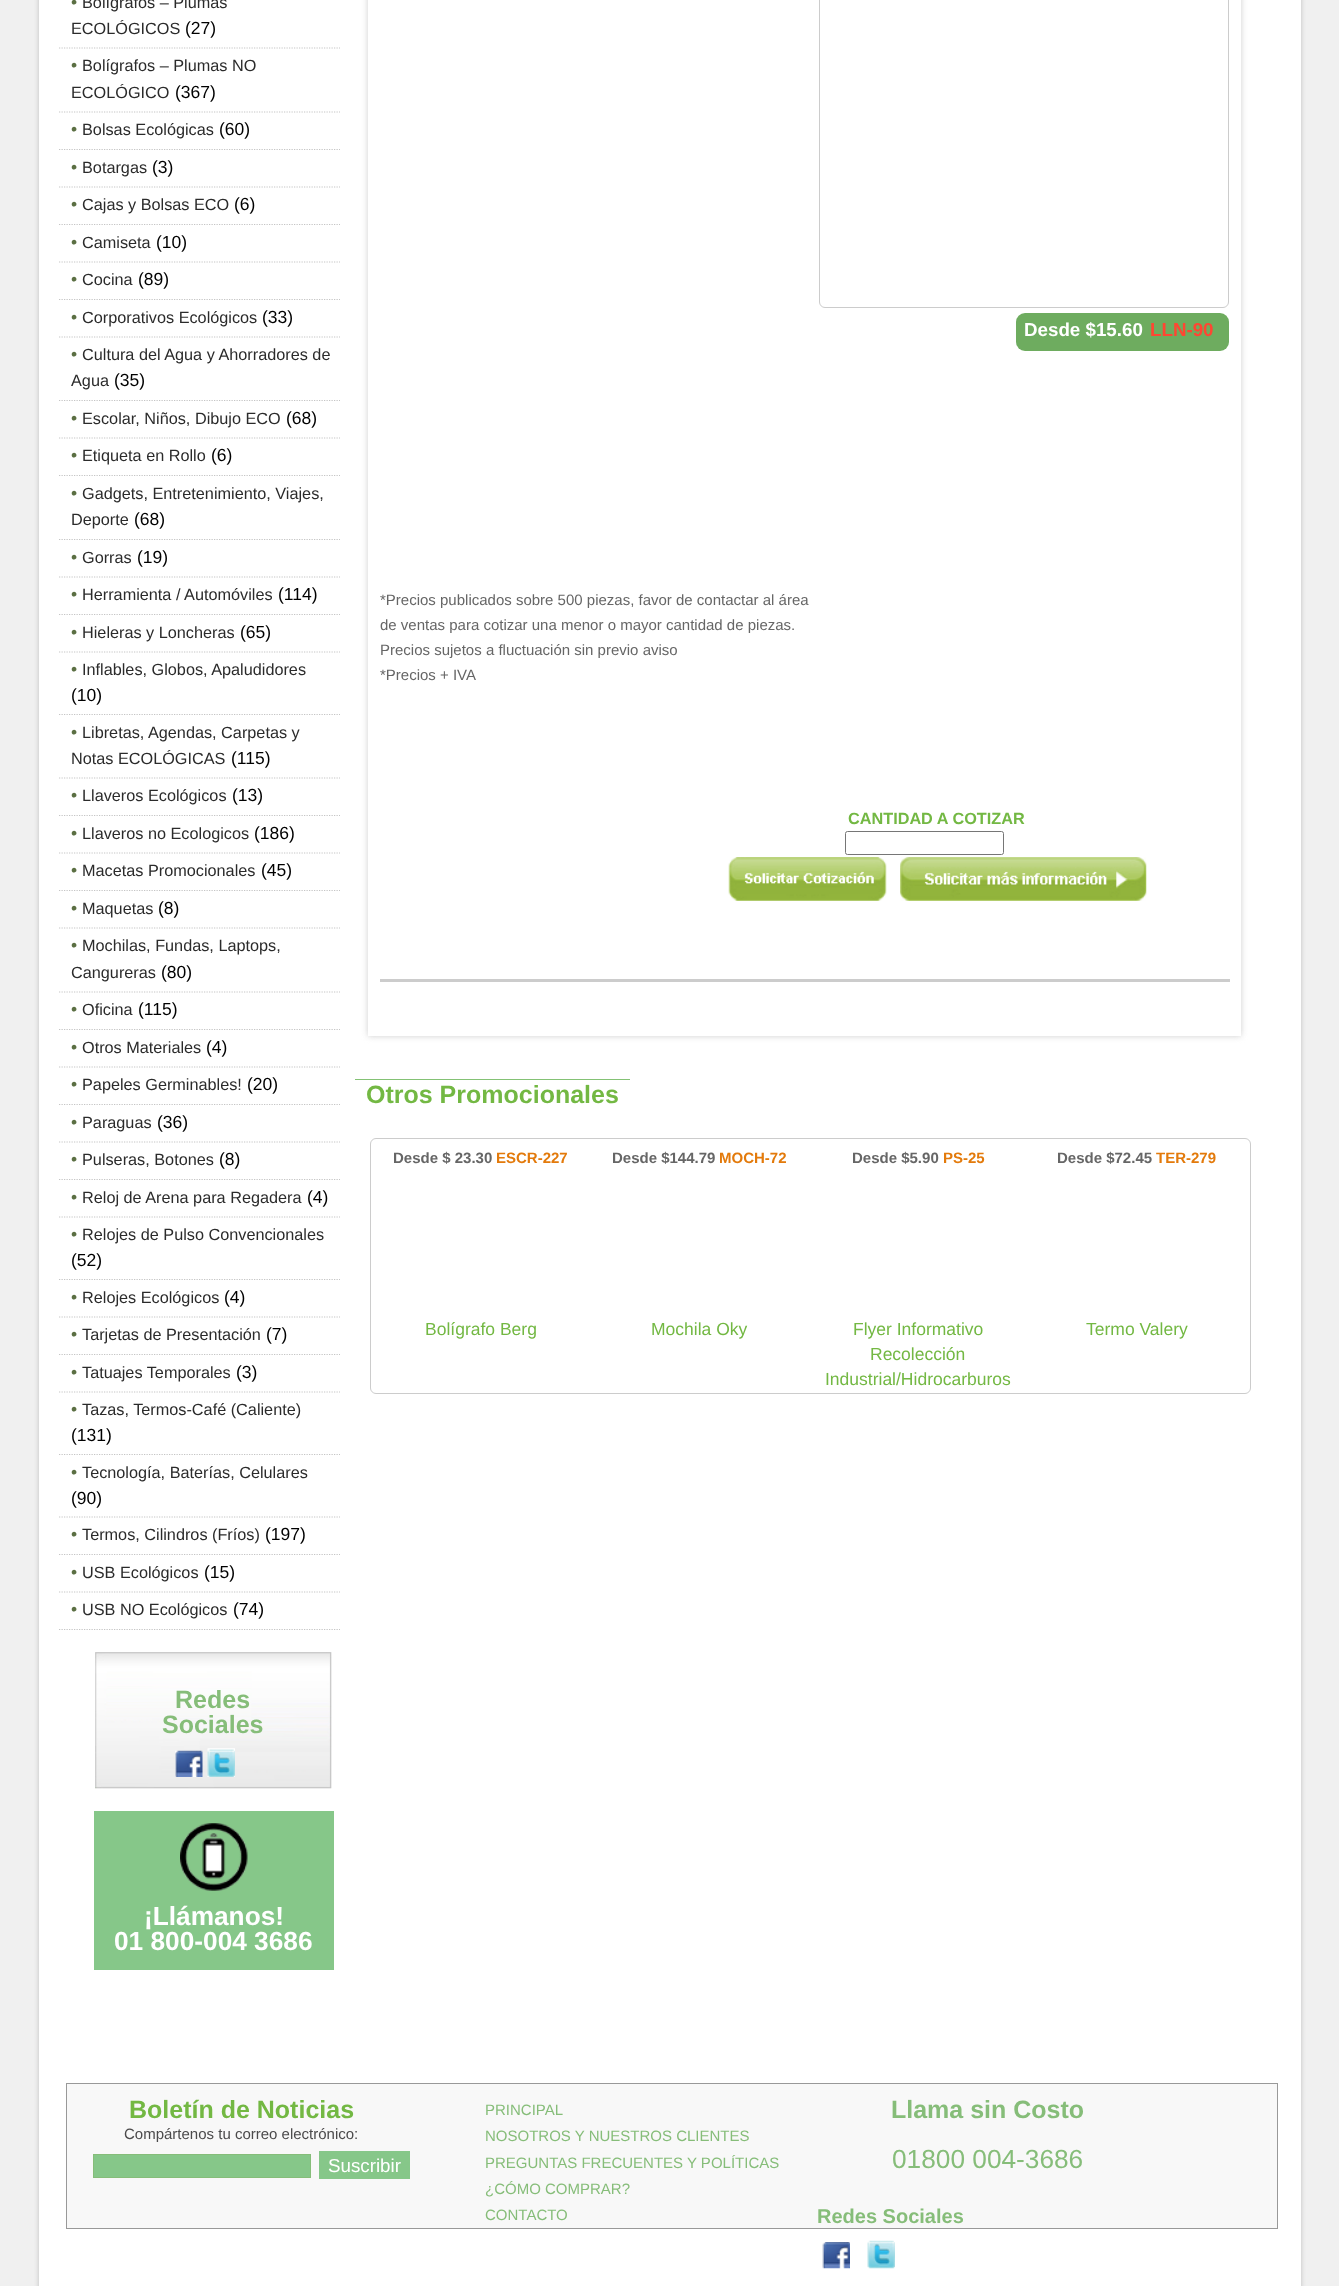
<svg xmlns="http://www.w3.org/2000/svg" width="1339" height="2286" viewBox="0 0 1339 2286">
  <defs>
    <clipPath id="clip1"><path d="M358 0H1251V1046H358ZM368-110H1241V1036H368Z" clip-rule="evenodd"/></clipPath>
  </defs>
  <rect width="100%" height="100%" fill="rgb(240,240,240)"/>
  <rect x="39" y="-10" width="1262" height="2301" rx="2.5" fill="rgba(0,0,0,0.2)" filter="blur(2.5px)"/>
  <rect x="39" y="0" width="1262" height="2286" fill="rgb(255,255,255)"/>
  <path d="M59 48H340" fill="none" stroke="rgb(197,197,197)" stroke-width="1.2" stroke-dasharray="1.25 1.25"/>
  <text x="71" y="8" font-family="Liberation Sans" font-size="17.5" fill="rgb(91,111,67)">•</text>
  <g font-family="Liberation Sans" font-size="16.25" fill="rgb(43,43,43)">
    <text x="82" y="8">Bolígrafos – Plumas</text>
    <text x="71" y="34">ECOLÓGICOS</text>
  </g>
  <text x="185" y="34" font-family="Liberation Sans" font-size="17.5" fill="rgb(0,0,0)">(27)</text>
  <path d="M59 112H340" fill="none" stroke="rgb(197,197,197)" stroke-width="1.2" stroke-dasharray="1.25 1.25"/>
  <text x="71" y="71" font-family="Liberation Sans" font-size="17.5" fill="rgb(91,111,67)">•</text>
  <g font-family="Liberation Sans" font-size="16.25" fill="rgb(43,43,43)">
    <text x="82" y="71">Bolígrafos – Plumas NO</text>
    <text x="71" y="98">ECOLÓGICO</text>
  </g>
  <text x="175" y="98" font-family="Liberation Sans" font-size="17.5" fill="rgb(0,0,0)">(367)</text>
  <path d="M59 149.5H340" fill="none" stroke="rgb(197,197,197)" stroke-width="1.2" stroke-dasharray="1.25 1.25"/>
  <text x="71" y="135" font-family="Liberation Sans" font-size="17.5" fill="rgb(91,111,67)">•</text>
  <text x="82" y="135" font-family="Liberation Sans" font-size="16.25" fill="rgb(43,43,43)">Bolsas Ecológicas</text>
  <text x="219" y="135" font-family="Liberation Sans" font-size="17.5" fill="rgb(0,0,0)">(60)</text>
  <path d="M59 187H340" fill="none" stroke="rgb(197,197,197)" stroke-width="1.2" stroke-dasharray="1.25 1.25"/>
  <text x="71" y="173" font-family="Liberation Sans" font-size="17.5" fill="rgb(91,111,67)">•</text>
  <text x="82" y="173" font-family="Liberation Sans" font-size="16.25" fill="rgb(43,43,43)">Botargas</text>
  <text x="152" y="173" font-family="Liberation Sans" font-size="17.5" fill="rgb(0,0,0)">(3)</text>
  <path d="M59 224.5H340" fill="none" stroke="rgb(197,197,197)" stroke-width="1.2" stroke-dasharray="1.25 1.25"/>
  <text x="71" y="210" font-family="Liberation Sans" font-size="17.5" fill="rgb(91,111,67)">•</text>
  <text x="82" y="210" font-family="Liberation Sans" font-size="16.25" fill="rgb(43,43,43)">Cajas y Bolsas ECO</text>
  <text x="234" y="210" font-family="Liberation Sans" font-size="17.5" fill="rgb(0,0,0)">(6)</text>
  <path d="M59 262H340" fill="none" stroke="rgb(197,197,197)" stroke-width="1.2" stroke-dasharray="1.25 1.25"/>
  <text x="71" y="248" font-family="Liberation Sans" font-size="17.5" fill="rgb(91,111,67)">•</text>
  <text x="82" y="248" font-family="Liberation Sans" font-size="16.25" fill="rgb(43,43,43)">Camiseta</text>
  <text x="156" y="248" font-family="Liberation Sans" font-size="17.5" fill="rgb(0,0,0)">(10)</text>
  <path d="M59 299.5H340" fill="none" stroke="rgb(197,197,197)" stroke-width="1.2" stroke-dasharray="1.25 1.25"/>
  <text x="71" y="285" font-family="Liberation Sans" font-size="17.5" fill="rgb(91,111,67)">•</text>
  <text x="82" y="285" font-family="Liberation Sans" font-size="16.25" fill="rgb(43,43,43)">Cocina</text>
  <text x="138" y="285" font-family="Liberation Sans" font-size="17.5" fill="rgb(0,0,0)">(89)</text>
  <path d="M59 337H340" fill="none" stroke="rgb(197,197,197)" stroke-width="1.2" stroke-dasharray="1.25 1.25"/>
  <text x="71" y="323" font-family="Liberation Sans" font-size="17.5" fill="rgb(91,111,67)">•</text>
  <text x="82" y="323" font-family="Liberation Sans" font-size="16.25" fill="rgb(43,43,43)">Corporativos Ecológicos</text>
  <text x="262" y="323" font-family="Liberation Sans" font-size="17.5" fill="rgb(0,0,0)">(33)</text>
  <path d="M59 400.5H340" fill="none" stroke="rgb(197,197,197)" stroke-width="1.2" stroke-dasharray="1.25 1.25"/>
  <text x="71" y="360" font-family="Liberation Sans" font-size="17.5" fill="rgb(91,111,67)">•</text>
  <g font-family="Liberation Sans" font-size="16.25" fill="rgb(43,43,43)">
    <text x="82" y="360">Cultura del Agua y Ahorradores de</text>
    <text x="71" y="386">Agua</text>
  </g>
  <text x="114" y="386" font-family="Liberation Sans" font-size="17.5" fill="rgb(0,0,0)">(35)</text>
  <path d="M59 438H340" fill="none" stroke="rgb(197,197,197)" stroke-width="1.2" stroke-dasharray="1.25 1.25"/>
  <text x="71" y="424" font-family="Liberation Sans" font-size="17.5" fill="rgb(91,111,67)">•</text>
  <text x="82" y="424" font-family="Liberation Sans" font-size="16.25" fill="rgb(43,43,43)">Escolar, Niños, Dibujo ECO</text>
  <text x="286" y="424" font-family="Liberation Sans" font-size="17.5" fill="rgb(0,0,0)">(68)</text>
  <path d="M59 475.5H340" fill="none" stroke="rgb(197,197,197)" stroke-width="1.2" stroke-dasharray="1.25 1.25"/>
  <text x="71" y="461" font-family="Liberation Sans" font-size="17.5" fill="rgb(91,111,67)">•</text>
  <text x="82" y="461" font-family="Liberation Sans" font-size="16.25" fill="rgb(43,43,43)">Etiqueta en Rollo</text>
  <text x="211" y="461" font-family="Liberation Sans" font-size="17.5" fill="rgb(0,0,0)">(6)</text>
  <path d="M59 539.5H340" fill="none" stroke="rgb(197,197,197)" stroke-width="1.2" stroke-dasharray="1.25 1.25"/>
  <text x="71" y="499" font-family="Liberation Sans" font-size="17.5" fill="rgb(91,111,67)">•</text>
  <g font-family="Liberation Sans" font-size="16.25" fill="rgb(43,43,43)">
    <text x="82" y="499">Gadgets, Entretenimiento, Viajes,</text>
    <text x="71" y="525">Deporte</text>
  </g>
  <text x="134" y="525" font-family="Liberation Sans" font-size="17.5" fill="rgb(0,0,0)">(68)</text>
  <path d="M59 577H340" fill="none" stroke="rgb(197,197,197)" stroke-width="1.2" stroke-dasharray="1.25 1.25"/>
  <text x="71" y="563" font-family="Liberation Sans" font-size="17.5" fill="rgb(91,111,67)">•</text>
  <text x="82" y="563" font-family="Liberation Sans" font-size="16.25" fill="rgb(43,43,43)">Gorras</text>
  <text x="137" y="563" font-family="Liberation Sans" font-size="17.5" fill="rgb(0,0,0)">(19)</text>
  <path d="M59 614.5H340" fill="none" stroke="rgb(197,197,197)" stroke-width="1.2" stroke-dasharray="1.25 1.25"/>
  <text x="71" y="600" font-family="Liberation Sans" font-size="17.5" fill="rgb(91,111,67)">•</text>
  <text x="82" y="600" font-family="Liberation Sans" font-size="16.25" fill="rgb(43,43,43)">Herramienta / Automóviles</text>
  <text x="278" y="600" font-family="Liberation Sans" font-size="17.5" fill="rgb(0,0,0)">(114)</text>
  <path d="M59 652H340" fill="none" stroke="rgb(197,197,197)" stroke-width="1.2" stroke-dasharray="1.25 1.25"/>
  <text x="71" y="638" font-family="Liberation Sans" font-size="17.5" fill="rgb(91,111,67)">•</text>
  <text x="82" y="638" font-family="Liberation Sans" font-size="16.25" fill="rgb(43,43,43)">Hieleras y Loncheras</text>
  <text x="240" y="638" font-family="Liberation Sans" font-size="17.5" fill="rgb(0,0,0)">(65)</text>
  <path d="M59 714.5H340" fill="none" stroke="rgb(197,197,197)" stroke-width="1.2" stroke-dasharray="1.25 1.25"/>
  <text x="71" y="675" font-family="Liberation Sans" font-size="17.5" fill="rgb(91,111,67)">•</text>
  <text x="82" y="675" font-family="Liberation Sans" font-size="16.25" fill="rgb(43,43,43)">Inflables, Globos, Apaludidores</text>
  <text x="71" y="701" font-family="Liberation Sans" font-size="17.5" fill="rgb(0,0,0)">(10)</text>
  <path d="M59 778H340" fill="none" stroke="rgb(197,197,197)" stroke-width="1.2" stroke-dasharray="1.25 1.25"/>
  <text x="71" y="738" font-family="Liberation Sans" font-size="17.5" fill="rgb(91,111,67)">•</text>
  <g font-family="Liberation Sans" font-size="16.25" fill="rgb(43,43,43)">
    <text x="82" y="738">Libretas, Agendas, Carpetas y</text>
    <text x="71" y="764">Notas ECOLÓGICAS</text>
  </g>
  <text x="231" y="764" font-family="Liberation Sans" font-size="17.5" fill="rgb(0,0,0)">(115)</text>
  <path d="M59 815.5H340" fill="none" stroke="rgb(197,197,197)" stroke-width="1.2" stroke-dasharray="1.25 1.25"/>
  <text x="71" y="801" font-family="Liberation Sans" font-size="17.5" fill="rgb(91,111,67)">•</text>
  <text x="82" y="801" font-family="Liberation Sans" font-size="16.25" fill="rgb(43,43,43)">Llaveros Ecológicos</text>
  <text x="232" y="801" font-family="Liberation Sans" font-size="17.5" fill="rgb(0,0,0)">(13)</text>
  <path d="M59 853H340" fill="none" stroke="rgb(197,197,197)" stroke-width="1.2" stroke-dasharray="1.25 1.25"/>
  <text x="71" y="839" font-family="Liberation Sans" font-size="17.5" fill="rgb(91,111,67)">•</text>
  <text x="82" y="839" font-family="Liberation Sans" font-size="16.25" fill="rgb(43,43,43)">Llaveros no Ecologicos</text>
  <text x="254" y="839" font-family="Liberation Sans" font-size="17.5" fill="rgb(0,0,0)">(186)</text>
  <path d="M59 890.5H340" fill="none" stroke="rgb(197,197,197)" stroke-width="1.2" stroke-dasharray="1.25 1.25"/>
  <text x="71" y="876" font-family="Liberation Sans" font-size="17.5" fill="rgb(91,111,67)">•</text>
  <text x="82" y="876" font-family="Liberation Sans" font-size="16.25" fill="rgb(43,43,43)">Macetas Promocionales</text>
  <text x="261" y="876" font-family="Liberation Sans" font-size="17.5" fill="rgb(0,0,0)">(45)</text>
  <path d="M59 928H340" fill="none" stroke="rgb(197,197,197)" stroke-width="1.2" stroke-dasharray="1.25 1.25"/>
  <text x="71" y="914" font-family="Liberation Sans" font-size="17.5" fill="rgb(91,111,67)">•</text>
  <text x="82" y="914" font-family="Liberation Sans" font-size="16.25" fill="rgb(43,43,43)">Maquetas</text>
  <text x="158" y="914" font-family="Liberation Sans" font-size="17.5" fill="rgb(0,0,0)">(8)</text>
  <path d="M59 992H340" fill="none" stroke="rgb(197,197,197)" stroke-width="1.2" stroke-dasharray="1.25 1.25"/>
  <text x="71" y="951" font-family="Liberation Sans" font-size="17.5" fill="rgb(91,111,67)">•</text>
  <g font-family="Liberation Sans" font-size="16.25" fill="rgb(43,43,43)">
    <text x="82" y="951">Mochilas, Fundas, Laptops,</text>
    <text x="71" y="978">Cangureras</text>
  </g>
  <text x="161" y="978" font-family="Liberation Sans" font-size="17.5" fill="rgb(0,0,0)">(80)</text>
  <path d="M59 1029.5H340" fill="none" stroke="rgb(197,197,197)" stroke-width="1.2" stroke-dasharray="1.25 1.25"/>
  <text x="71" y="1015" font-family="Liberation Sans" font-size="17.5" fill="rgb(91,111,67)">•</text>
  <text x="82" y="1015" font-family="Liberation Sans" font-size="16.25" fill="rgb(43,43,43)">Oficina</text>
  <text x="138" y="1015" font-family="Liberation Sans" font-size="17.5" fill="rgb(0,0,0)">(115)</text>
  <path d="M59 1067H340" fill="none" stroke="rgb(197,197,197)" stroke-width="1.2" stroke-dasharray="1.25 1.25"/>
  <text x="71" y="1053" font-family="Liberation Sans" font-size="17.5" fill="rgb(91,111,67)">•</text>
  <text x="82" y="1053" font-family="Liberation Sans" font-size="16.25" fill="rgb(43,43,43)">Otros Materiales</text>
  <text x="206" y="1053" font-family="Liberation Sans" font-size="17.5" fill="rgb(0,0,0)">(4)</text>
  <path d="M59 1104.5H340" fill="none" stroke="rgb(197,197,197)" stroke-width="1.2" stroke-dasharray="1.25 1.25"/>
  <text x="71" y="1090" font-family="Liberation Sans" font-size="17.5" fill="rgb(91,111,67)">•</text>
  <text x="82" y="1090" font-family="Liberation Sans" font-size="16.25" fill="rgb(43,43,43)">Papeles Germinables!</text>
  <text x="247" y="1090" font-family="Liberation Sans" font-size="17.5" fill="rgb(0,0,0)">(20)</text>
  <path d="M59 1142H340" fill="none" stroke="rgb(197,197,197)" stroke-width="1.2" stroke-dasharray="1.25 1.25"/>
  <text x="71" y="1128" font-family="Liberation Sans" font-size="17.5" fill="rgb(91,111,67)">•</text>
  <text x="82" y="1128" font-family="Liberation Sans" font-size="16.25" fill="rgb(43,43,43)">Paraguas</text>
  <text x="157" y="1128" font-family="Liberation Sans" font-size="17.5" fill="rgb(0,0,0)">(36)</text>
  <path d="M59 1179.5H340" fill="none" stroke="rgb(197,197,197)" stroke-width="1.2" stroke-dasharray="1.25 1.25"/>
  <text x="71" y="1165" font-family="Liberation Sans" font-size="17.5" fill="rgb(91,111,67)">•</text>
  <text x="82" y="1165" font-family="Liberation Sans" font-size="16.25" fill="rgb(43,43,43)">Pulseras, Botones</text>
  <text x="219" y="1165" font-family="Liberation Sans" font-size="17.5" fill="rgb(0,0,0)">(8)</text>
  <path d="M59 1217H340" fill="none" stroke="rgb(197,197,197)" stroke-width="1.2" stroke-dasharray="1.25 1.25"/>
  <text x="71" y="1203" font-family="Liberation Sans" font-size="17.5" fill="rgb(91,111,67)">•</text>
  <text x="82" y="1203" font-family="Liberation Sans" font-size="16.25" fill="rgb(43,43,43)">Reloj de Arena para Regadera</text>
  <text x="307" y="1203" font-family="Liberation Sans" font-size="17.5" fill="rgb(0,0,0)">(4)</text>
  <path d="M59 1279.5H340" fill="none" stroke="rgb(197,197,197)" stroke-width="1.2" stroke-dasharray="1.25 1.25"/>
  <text x="71" y="1240" font-family="Liberation Sans" font-size="17.5" fill="rgb(91,111,67)">•</text>
  <text x="82" y="1240" font-family="Liberation Sans" font-size="16.25" fill="rgb(43,43,43)">Relojes de Pulso Convencionales</text>
  <text x="71" y="1266" font-family="Liberation Sans" font-size="17.5" fill="rgb(0,0,0)">(52)</text>
  <path d="M59 1317H340" fill="none" stroke="rgb(197,197,197)" stroke-width="1.2" stroke-dasharray="1.25 1.25"/>
  <text x="71" y="1303" font-family="Liberation Sans" font-size="17.5" fill="rgb(91,111,67)">•</text>
  <text x="82" y="1303" font-family="Liberation Sans" font-size="16.25" fill="rgb(43,43,43)">Relojes Ecológicos</text>
  <text x="224" y="1303" font-family="Liberation Sans" font-size="17.5" fill="rgb(0,0,0)">(4)</text>
  <path d="M59 1354.5H340" fill="none" stroke="rgb(197,197,197)" stroke-width="1.2" stroke-dasharray="1.25 1.25"/>
  <text x="71" y="1340" font-family="Liberation Sans" font-size="17.5" fill="rgb(91,111,67)">•</text>
  <text x="82" y="1340" font-family="Liberation Sans" font-size="16.25" fill="rgb(43,43,43)">Tarjetas de Presentación</text>
  <text x="266" y="1340" font-family="Liberation Sans" font-size="17.5" fill="rgb(0,0,0)">(7)</text>
  <path d="M59 1392H340" fill="none" stroke="rgb(197,197,197)" stroke-width="1.2" stroke-dasharray="1.25 1.25"/>
  <text x="71" y="1378" font-family="Liberation Sans" font-size="17.5" fill="rgb(91,111,67)">•</text>
  <text x="82" y="1378" font-family="Liberation Sans" font-size="16.25" fill="rgb(43,43,43)">Tatuajes Temporales</text>
  <text x="236" y="1378" font-family="Liberation Sans" font-size="17.5" fill="rgb(0,0,0)">(3)</text>
  <path d="M59 1454.5H340" fill="none" stroke="rgb(197,197,197)" stroke-width="1.2" stroke-dasharray="1.25 1.25"/>
  <text x="71" y="1415" font-family="Liberation Sans" font-size="17.5" fill="rgb(91,111,67)">•</text>
  <text x="82" y="1415" font-family="Liberation Sans" font-size="16.25" fill="rgb(43,43,43)">Tazas, Termos-Café (Caliente)</text>
  <text x="71" y="1441" font-family="Liberation Sans" font-size="17.5" fill="rgb(0,0,0)">(131)</text>
  <path d="M59 1517H340" fill="none" stroke="rgb(197,197,197)" stroke-width="1.2" stroke-dasharray="1.25 1.25"/>
  <text x="71" y="1478" font-family="Liberation Sans" font-size="17.5" fill="rgb(91,111,67)">•</text>
  <text x="82" y="1478" font-family="Liberation Sans" font-size="16.25" fill="rgb(43,43,43)">Tecnología, Baterías, Celulares</text>
  <text x="71" y="1504" font-family="Liberation Sans" font-size="17.5" fill="rgb(0,0,0)">(90)</text>
  <path d="M59 1554.5H340" fill="none" stroke="rgb(197,197,197)" stroke-width="1.2" stroke-dasharray="1.25 1.25"/>
  <text x="71" y="1540" font-family="Liberation Sans" font-size="17.5" fill="rgb(91,111,67)">•</text>
  <text x="82" y="1540" font-family="Liberation Sans" font-size="16.25" fill="rgb(43,43,43)">Termos, Cilindros (Fríos)</text>
  <text x="265" y="1540" font-family="Liberation Sans" font-size="17.5" fill="rgb(0,0,0)">(197)</text>
  <path d="M59 1592H340" fill="none" stroke="rgb(197,197,197)" stroke-width="1.2" stroke-dasharray="1.25 1.25"/>
  <text x="71" y="1578" font-family="Liberation Sans" font-size="17.5" fill="rgb(91,111,67)">•</text>
  <text x="82" y="1578" font-family="Liberation Sans" font-size="16.25" fill="rgb(43,43,43)">USB Ecológicos</text>
  <text x="204" y="1578" font-family="Liberation Sans" font-size="17.5" fill="rgb(0,0,0)">(15)</text>
  <path d="M59 1629.5H340" fill="none" stroke="rgb(197,197,197)" stroke-width="1.2" stroke-dasharray="1.25 1.25"/>
  <text x="71" y="1615" font-family="Liberation Sans" font-size="17.5" fill="rgb(91,111,67)">•</text>
  <text x="82" y="1615" font-family="Liberation Sans" font-size="16.25" fill="rgb(43,43,43)">USB NO Ecológicos</text>
  <text x="233" y="1615" font-family="Liberation Sans" font-size="17.5" fill="rgb(0,0,0)">(74)</text>
  <image x="95" y="1652" width="237" height="137" href="pic1.png"/>
  <g font-family="Liberation Sans" font-size="25" font-weight="bold" fill="rgb(134,189,121)">
    <text x="175" y="1708">Redes</text>
    <text x="162" y="1733">Sociales</text>
  </g>
  <image x="175" y="1750" width="28" height="27" href="pic2.png"/>
  <image x="207" y="1748" width="28" height="29" href="pic3.png"/>
  <rect x="94" y="1811" width="240" height="159" fill="rgb(134,199,137)"/>
  <image x="180" y="1823" width="68" height="68" href="pic4.png"/>
  <g font-family="Liberation Sans" font-size="26.25" font-weight="bold" fill="rgb(255,255,255)">
    <text x="144" y="1925">¡Llámanos!</text>
    <text x="114" y="1950">01 800-004 3686</text>
  </g>
  <g clip-path="url(#clip1)">
    <rect x="368" y="-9" width="873" height="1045" fill="rgb(206,206,206)" filter="blur(3px)"/>
  </g>
  <rect x="819.5" y="-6.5" width="409" height="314" rx="5.5" fill="none" stroke="rgb(204,204,204)"/>
  <rect x="1016" y="313" width="213" height="38" rx="9" fill="rgb(110,172,95)"/>
  <text x="1024" y="336" font-family="Liberation Sans" font-size="18.75" font-weight="bold" fill="rgb(255,255,255)">Desde $15.60</text>
  <text x="1150" y="336" font-family="Liberation Sans" font-size="18.75" font-weight="bold" fill="rgb(255,70,50)">LLN-90</text>
  <g font-family="Liberation Sans" font-size="15" fill="rgb(102,102,102)">
    <text>
      <tspan x="380" y="605">*Precios publicados sobre 500 piezas, favor de contactar al área</tspan>
      <tspan x="380" y="630">de ventas para cotizar una menor o mayor cantidad de piezas.</tspan>
      <tspan x="380" y="655">Precios sujetos a fluctuación sin previo aviso</tspan>
      <tspan x="380" y="680">*Precios + IVA</tspan>
    </text>
  </g>
  <text x="848" y="824" font-family="Liberation Sans" font-size="16.25" font-weight="bold" fill="rgb(115,184,67)">CANTIDAD A COTIZAR</text>
  <rect x="845.5" y="831.5" width="158" height="23" rx="2" fill="none" stroke="rgb(118,118,118)"/>
  <image x="728" y="857" width="159" height="44" href="pic5.png"/>
  <image x="900" y="857" width="247" height="44" href="pic6.png"/>
  <rect x="380" y="979" width="850" height="3" fill="rgb(204,204,204)"/>
  <rect x="355" y="1079" width="275" height="1" fill="rgb(132,194,117)"/>
  <text x="366" y="1103" font-family="Liberation Sans" font-size="25" font-weight="bold" fill="rgb(115,184,67)">Otros Promocionales</text>
  <rect x="370.5" y="1138.5" width="880" height="255" rx="5.5" fill="none" stroke="rgb(204,204,204)"/>
  <text x="393" y="1163" font-family="Liberation Sans" font-size="15" font-weight="bold" fill="rgb(102,102,102)">Desde $ 23.30</text>
  <text x="496" y="1163" font-family="Liberation Sans" font-size="15" font-weight="bold" fill="rgb(227,122,11)">ESCR-227</text>
  <text x="425" y="1335" font-family="Liberation Sans" font-size="17.5" fill="rgb(115,184,67)">Bolígrafo Berg</text>
  <text x="612" y="1163" font-family="Liberation Sans" font-size="15" font-weight="bold" fill="rgb(102,102,102)">Desde $144.79</text>
  <text x="719" y="1163" font-family="Liberation Sans" font-size="15" font-weight="bold" fill="rgb(227,122,11)">MOCH-72</text>
  <text x="651" y="1335" font-family="Liberation Sans" font-size="17.5" fill="rgb(115,184,67)">Mochila Oky</text>
  <text x="852" y="1163" font-family="Liberation Sans" font-size="15" font-weight="bold" fill="rgb(102,102,102)">Desde $5.90</text>
  <text x="943" y="1163" font-family="Liberation Sans" font-size="15" font-weight="bold" fill="rgb(227,122,11)">PS-25</text>
  <g font-family="Liberation Sans" font-size="17.5" fill="rgb(115,184,67)">
    <text x="853" y="1335">Flyer Informativo</text>
    <text x="870" y="1360">Recolección</text>
    <text x="825" y="1385">Industrial/Hidrocarburos</text>
  </g>
  <text x="1057" y="1163" font-family="Liberation Sans" font-size="15" font-weight="bold" fill="rgb(102,102,102)">Desde $72.45</text>
  <text x="1156" y="1163" font-family="Liberation Sans" font-size="15" font-weight="bold" fill="rgb(227,122,11)">TER-279</text>
  <text x="1086" y="1335" font-family="Liberation Sans" font-size="17.5" fill="rgb(115,184,67)">Termo Valery</text>
  <rect x="66.5" y="2083.5" width="1211" height="145" fill="rgb(248,248,248)" stroke="rgb(153,153,153)"/>
  <text x="129" y="2118" font-family="Liberation Sans" font-size="25" font-weight="bold" fill="rgb(115,184,67)">Boletín de Noticias</text>
  <text x="124" y="2139" font-family="Liberation Sans" font-size="15" fill="rgb(75,74,75)">Compártenos tu correo electrónico:</text>
  <rect x="93.5" y="2154.5" width="217" height="23" fill="rgb(134,199,137)" stroke="rgb(134,189,121)"/>
  <rect x="319" y="2151" width="91" height="28" fill="rgb(134,199,137)"/>
  <text x="328" y="2172" font-family="Liberation Sans" font-size="18.75" fill="rgb(255,255,255)">Suscribir</text>
  <g font-family="Liberation Sans" font-size="15" fill="rgb(134,189,121)">
    <text>
      <tspan x="485" y="2115">PRINCIPAL</tspan>
      <tspan x="485" y="2141">NOSOTROS Y NUESTROS CLIENTES</tspan>
      <tspan x="485" y="2168">PREGUNTAS FRECUENTES Y POLÍTICAS</tspan>
      <tspan x="485" y="2194">¿CÓMO COMPRAR?</tspan>
      <tspan x="485" y="2220">CONTACTO</tspan>
    </text>
  </g>
  <text x="817" y="2223" font-family="Liberation Sans" font-size="20" font-weight="bold" fill="rgb(134,189,121)">Redes Sociales</text>
  <image x="822" y="2242" width="28" height="27" href="pic7.png"/>
  <image x="867" y="2240" width="28" height="29" href="pic8.png"/>
  <text x="891" y="2118" font-family="Liberation Sans" font-size="25" font-weight="bold" fill="rgb(134,189,121)">Llama sin Costo</text>
  <text x="892" y="2168" font-family="Liberation Sans" font-size="26.25" fill="rgb(134,189,121)">01800 004-3686</text>
</svg>
